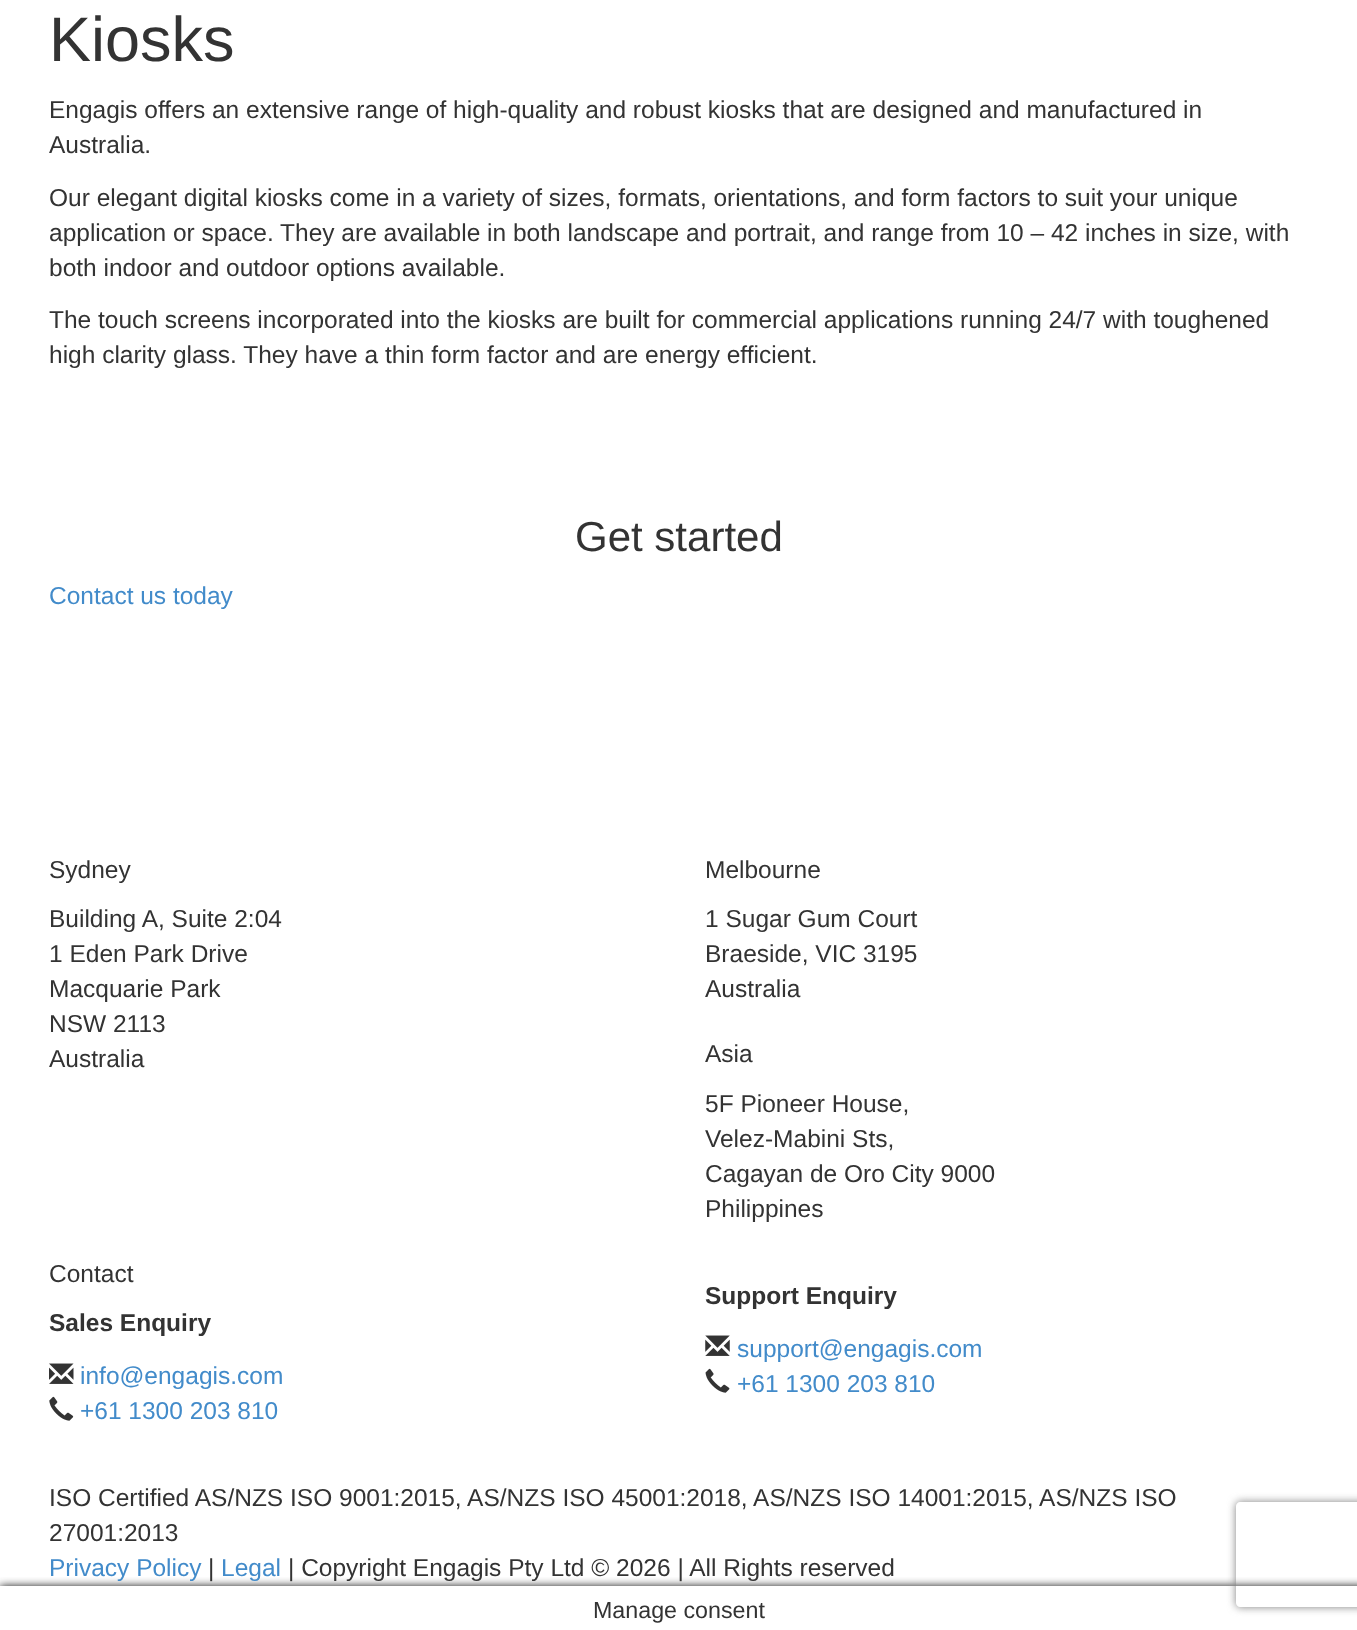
<svg xmlns="http://www.w3.org/2000/svg" width="1357" height="1630" viewBox="0 0 1357 1630">
  <defs>
    <clipPath id="clip1"><rect x="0" y="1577" width="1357" height="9"/></clipPath>
    <clipPath id="clip2"><path d="M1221 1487H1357V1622H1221ZM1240 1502H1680C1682 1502 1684 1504 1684 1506V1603C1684 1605 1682 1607 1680 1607H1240C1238 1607 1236 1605 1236 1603V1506C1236 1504 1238 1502 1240 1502Z" clip-rule="evenodd"/></clipPath>
  </defs>
  <rect width="100%" height="100%" fill="rgb(255,255,255)"/>
  <text x="49" y="61" font-family="Liberation Sans" font-size="63" fill="rgb(51,51,51)">Kiosks</text>
  <g font-family="Liberation Sans" font-size="24.5" fill="rgb(51,51,51)">
    <text>
      <tspan x="49" y="118">Engagis offers an extensive range of high-quality and robust kiosks that are designed and manufactured in</tspan>
      <tspan x="49" y="153">Australia.</tspan>
    </text>
    <text>
      <tspan x="49" y="206">Our elegant digital kiosks come in a variety of sizes, formats, orientations, and form factors to suit your unique</tspan>
      <tspan x="49" y="241">application or space. They are available in both landscape and portrait, and range from 10 – 42 inches in size, with</tspan>
      <tspan x="49" y="276">both indoor and outdoor options available.</tspan>
    </text>
    <text>
      <tspan x="49" y="328">The touch screens incorporated into the kiosks are built for commercial applications running 24/7 with toughened</tspan>
      <tspan x="49" y="363">high clarity glass. They have a thin form factor and are energy efficient.</tspan>
    </text>
  </g>
  <text x="575" y="551" font-family="Liberation Sans" font-size="42" fill="rgb(51,51,51)">Get started</text>
  <text x="49" y="604" font-family="Liberation Sans" font-size="24.5" fill="rgb(66,139,202)">Contact us today</text>
  <g font-family="Liberation Sans" font-size="24.5" fill="rgb(51,51,51)">
    <text x="49" y="878">Sydney</text>
    <text>
      <tspan x="49" y="927">Building A, Suite 2:04</tspan>
      <tspan x="49" y="962">1 Eden Park Drive</tspan>
      <tspan x="49" y="997">Macquarie Park</tspan>
      <tspan x="49" y="1032">NSW 2113</tspan>
      <tspan x="49" y="1067">Australia</tspan>
    </text>
    <text x="705" y="878">Melbourne</text>
    <text>
      <tspan x="705" y="927">1 Sugar Gum Court</tspan>
      <tspan x="705" y="962">Braeside, VIC 3195</tspan>
      <tspan x="705" y="997">Australia</tspan>
    </text>
    <text x="705" y="1062">Asia</text>
    <text>
      <tspan x="705" y="1112">5F Pioneer House,</tspan>
      <tspan x="705" y="1147">Velez-Mabini Sts,</tspan>
      <tspan x="705" y="1182">Cagayan de Oro City 9000</tspan>
      <tspan x="705" y="1217">Philippines</tspan>
    </text>
    <text x="49" y="1282">Contact</text>
  </g>
  <text x="49" y="1331" font-family="Liberation Sans" font-size="24.5" font-weight="bold" fill="rgb(51,51,51)">Sales Enquiry</text>
  <image x="49" y="1363" width="25" height="21" href="pic1.png"/>
  <text x="80" y="1384" font-family="Liberation Sans" font-size="24.5" fill="rgb(66,139,202)">info@engagis.com</text>
  <image x="49" y="1396" width="25" height="25" href="pic2.png"/>
  <text x="80" y="1419" font-family="Liberation Sans" font-size="24.5" fill="rgb(66,139,202)">+61 1300 203 810</text>
  <text x="705" y="1304" font-family="Liberation Sans" font-size="24.5" font-weight="bold" fill="rgb(51,51,51)">Support Enquiry</text>
  <image x="705" y="1335" width="25" height="21" href="pic3.png"/>
  <text x="737" y="1357" font-family="Liberation Sans" font-size="24.5" fill="rgb(66,139,202)">support@engagis.com</text>
  <image x="705" y="1368" width="25" height="25" href="pic4.png"/>
  <text x="737" y="1392" font-family="Liberation Sans" font-size="24.5" fill="rgb(66,139,202)">+61 1300 203 810</text>
  <g font-family="Liberation Sans" font-size="24.5" fill="rgb(51,51,51)">
    <text>
      <tspan x="49" y="1506">ISO Certified AS/NZS ISO 9001:2015, AS/NZS ISO 45001:2018, AS/NZS ISO 14001:2015, AS/NZS ISO</tspan>
      <tspan x="49" y="1541">27001:2013</tspan>
    </text>
  </g>
  <g clip-path="url(#clip1)">
    <rect x="0" y="1586" width="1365" height="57" fill="rgb(22,22,22)" filter="blur(4.5px)"/>
  </g>
  <text x="49" y="1576" font-family="Liberation Sans" font-size="24.5" fill="rgb(66,139,202)">Privacy Policy</text>
  <text x="208" y="1576" font-family="Liberation Sans" font-size="24.5" fill="rgb(51,51,51)">|</text>
  <text x="221" y="1576" font-family="Liberation Sans" font-size="24.5" fill="rgb(66,139,202)">Legal</text>
  <text x="288" y="1576" font-family="Liberation Sans" font-size="24.5" fill="rgb(51,51,51)">| Copyright Engagis Pty Ltd © 2026 | All Rights reserved</text>
  <g clip-path="url(#clip2)">
    <rect x="1236" y="1502" width="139" height="105" rx="4" fill="rgb(128,128,128)" filter="blur(4.5px)"/>
  </g>
  <text x="593" y="1618" font-family="Liberation Sans" font-size="23.25" fill="rgb(51,51,51)">Manage consent</text>
</svg>
